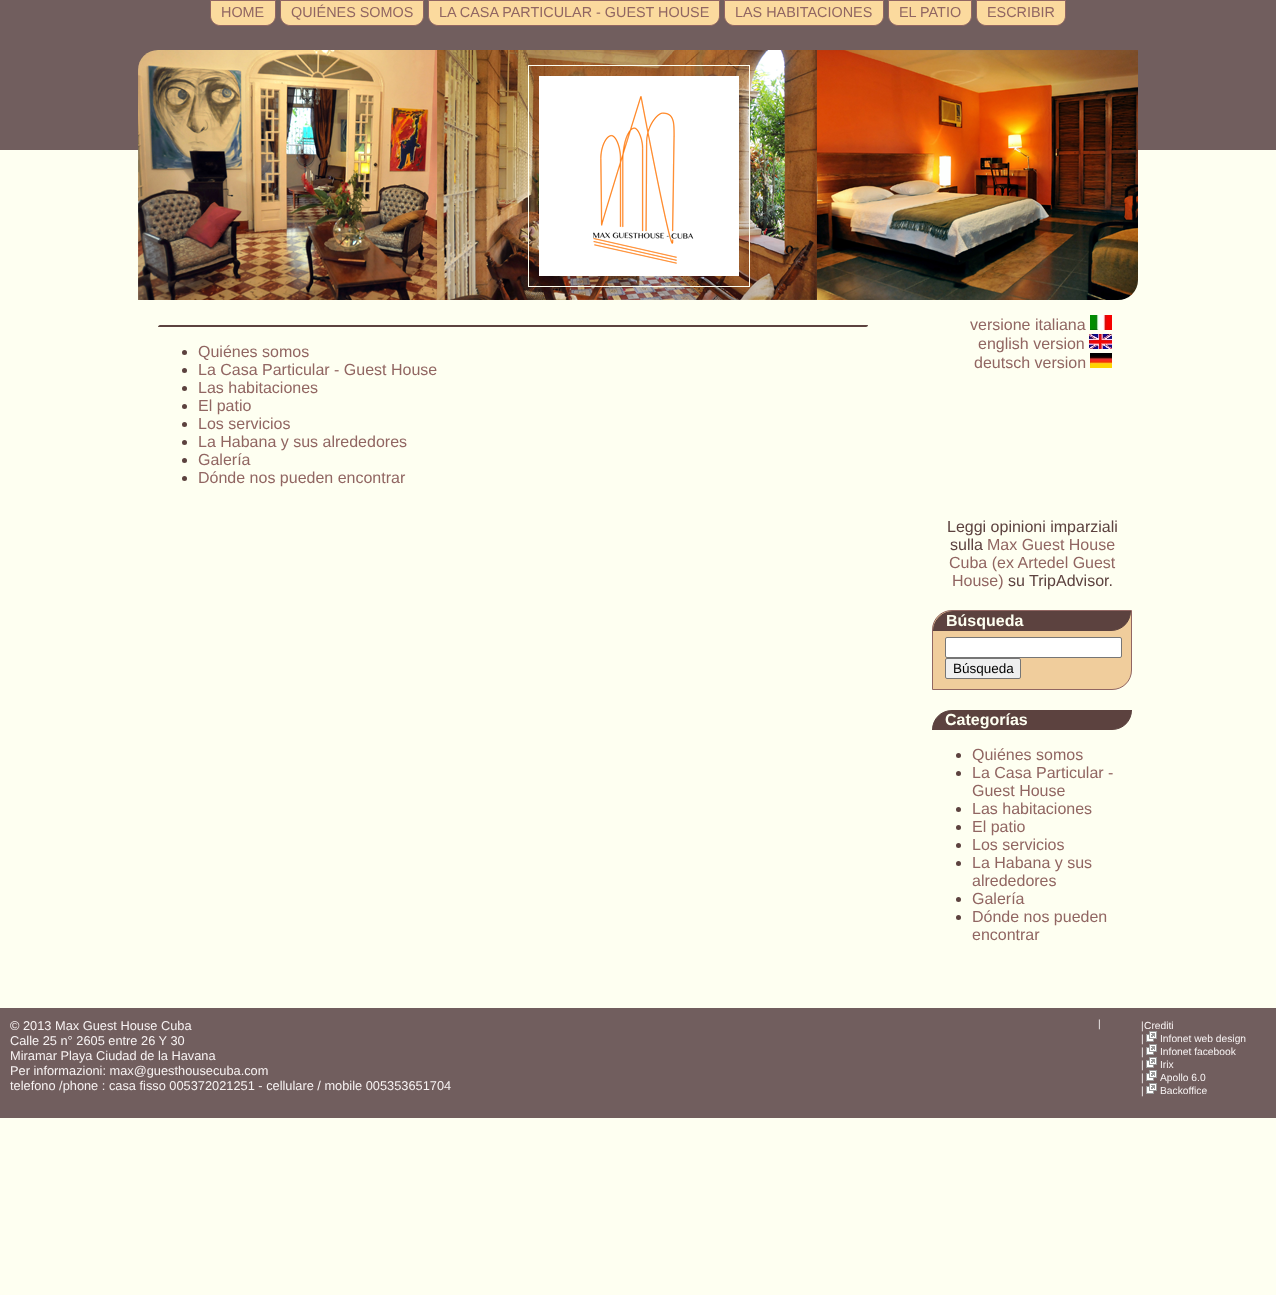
<svg xmlns="http://www.w3.org/2000/svg" width="1276" height="1295" viewBox="0 0 1276 1295">
  <rect width="100%" height="100%" fill="rgb(254,255,241)"/>
  <rect x="0" y="0" width="1276" height="150" fill="rgb(113,94,94)"/>
  <path d="M210.5 .5H275.5V16C275.5 21 271 25.5 266 25.5H220C215 25.5 210.5 21 210.5 16Z" fill="rgb(251,218,158)" stroke="rgb(145,102,98)"/>
  <text x="221" y="17" font-family="Liberation Sans" font-size="14.4" fill="rgb(145,102,98)">HOME</text>
  <path d="M280.5 .5H423.5V16C423.5 21 419 25.5 414 25.5H290C285 25.5 280.5 21 280.5 16Z" fill="rgb(251,218,158)" stroke="rgb(145,102,98)"/>
  <text x="291" y="17" font-family="Liberation Sans" font-size="14.4" fill="rgb(145,102,98)">QUIÉNES SOMOS</text>
  <path d="M428.5 .5H719.5V16C719.5 21 715 25.5 710 25.5H438C433 25.5 428.5 21 428.5 16Z" fill="rgb(251,218,158)" stroke="rgb(145,102,98)"/>
  <text x="439" y="17" font-family="Liberation Sans" font-size="14.4" fill="rgb(145,102,98)">LA CASA PARTICULAR - GUEST HOUSE</text>
  <path d="M724.5 .5H883.5V16C883.5 21 879 25.5 874 25.5H734C729 25.5 724.5 21 724.5 16Z" fill="rgb(251,218,158)" stroke="rgb(145,102,98)"/>
  <text x="735" y="17" font-family="Liberation Sans" font-size="14.4" fill="rgb(145,102,98)">LAS HABITACIONES</text>
  <path d="M888.5 .5H971.5V16C971.5 21 967 25.5 962 25.5H898C893 25.5 888.5 21 888.5 16Z" fill="rgb(251,218,158)" stroke="rgb(145,102,98)"/>
  <text x="899" y="17" font-family="Liberation Sans" font-size="14.4" fill="rgb(145,102,98)">EL PATIO</text>
  <path d="M976.5 .5H1065.5V16C1065.5 21 1061 25.5 1056 25.5H986C981 25.5 976.5 21 976.5 16Z" fill="rgb(251,218,158)" stroke="rgb(145,102,98)"/>
  <text x="987" y="17" font-family="Liberation Sans" font-size="14.4" fill="rgb(145,102,98)">ESCRIBIR</text>
  <image x="138" y="50" width="1000" height="250" href="pic1.png"/>
  <rect x="528.5" y="65.5" width="221" height="221" fill="none" stroke="rgb(254,255,241)"/>
  <image x="539" y="76" width="200" height="200" href="pic2.png"/>
  <path d="M160 325H868C868 326 867 327 866 327H158C158 326 159 325 160 325Z" fill="rgb(92,66,63)"/>
  <circle cx="184.5" cy="352.5" r="2.5" fill="rgb(92,66,63)"/>
  <text x="198" y="357" font-family="Liberation Sans" font-size="16" fill="rgb(145,102,98)">Quiénes somos</text>
  <circle cx="184.5" cy="370.5" r="2.5" fill="rgb(92,66,63)"/>
  <text x="198" y="375" font-family="Liberation Sans" font-size="16" fill="rgb(145,102,98)">La Casa Particular - Guest House</text>
  <circle cx="184.5" cy="388.5" r="2.5" fill="rgb(92,66,63)"/>
  <text x="198" y="393" font-family="Liberation Sans" font-size="16" fill="rgb(145,102,98)">Las habitaciones</text>
  <circle cx="184.5" cy="406.5" r="2.5" fill="rgb(92,66,63)"/>
  <text x="198" y="411" font-family="Liberation Sans" font-size="16" fill="rgb(145,102,98)">El patio</text>
  <circle cx="184.5" cy="424.5" r="2.5" fill="rgb(92,66,63)"/>
  <text x="198" y="429" font-family="Liberation Sans" font-size="16" fill="rgb(145,102,98)">Los servicios</text>
  <circle cx="184.5" cy="442.5" r="2.5" fill="rgb(92,66,63)"/>
  <text x="198" y="447" font-family="Liberation Sans" font-size="16" fill="rgb(145,102,98)">La Habana y sus alrededores</text>
  <circle cx="184.5" cy="460.5" r="2.5" fill="rgb(92,66,63)"/>
  <text x="198" y="465" font-family="Liberation Sans" font-size="16" fill="rgb(145,102,98)">Galería</text>
  <circle cx="184.5" cy="478.5" r="2.5" fill="rgb(92,66,63)"/>
  <g font-family="Liberation Sans" font-size="16" fill="rgb(145,102,98)">
    <text x="198" y="483">Dónde nos pueden encontrar</text>
    <text x="970" y="330">versione italiana</text>
  </g>
  <image x="1090" y="315" width="22" height="15" href="pic3.png"/>
  <text x="978" y="349" font-family="Liberation Sans" font-size="16" fill="rgb(145,102,98)">english version</text>
  <image x="1089" y="334" width="23" height="15" href="pic4.png"/>
  <text x="974" y="368" font-family="Liberation Sans" font-size="16" fill="rgb(145,102,98)">deutsch version</text>
  <image x="1090" y="353" width="22" height="15" href="pic5.png"/>
  <g font-family="Liberation Sans" font-size="16" fill="rgb(92,66,63)">
    <text x="947" y="532">Leggi opinioni imparziali</text>
    <text x="950" y="550">sulla</text>
  </g>
  <g font-family="Liberation Sans" font-size="16" fill="rgb(145,102,98)">
    <text x="987" y="550">Max Guest House</text>
    <text x="949" y="568">Cuba (ex Artedel Guest</text>
    <text x="952" y="586">House)</text>
  </g>
  <text x="1008" y="586" font-family="Liberation Sans" font-size="16" fill="rgb(92,66,63)">su TripAdvisor.</text>
  <path d="M952 610.5H1131.5V670C1131.5 681 1123 689.5 1112 689.5H932.5V630C932.5 619 941 610.5 952 610.5Z" fill="rgb(240,205,156)" stroke="rgb(145,102,98)"/>
  <path d="M953 611.5H1130.5V611C1130.5 622 1122 630.5 1111 630.5H933.5V631C933.5 620 942 611.5 953 611.5Z" fill="rgb(92,66,63)" stroke="rgb(92,66,63)"/>
  <text x="946" y="626" font-family="Liberation Sans" font-size="16" font-weight="bold" fill="rgb(254,255,241)">Búsqueda</text>
  <rect x="945.5" y="637.5" width="176" height="20" rx="1.5" fill="rgb(255,255,255)" stroke="rgb(118,118,118)"/>
  <rect x="945.5" y="658.5" width="75" height="20" rx="1.5" fill="rgb(239,239,239)" stroke="rgb(118,118,118)"/>
  <text x="953" y="673" font-family="Liberation Sans" font-size="13.5" fill="rgb(0,0,0)">Búsqueda</text>
  <path d="M952 710.5H1131.5V710C1131.5 721 1123 729.5 1112 729.5H932.5V730C932.5 719 941 710.5 952 710.5Z" fill="rgb(92,66,63)" stroke="rgb(92,66,63)"/>
  <text x="945" y="725" font-family="Liberation Sans" font-size="16" font-weight="bold" fill="rgb(254,255,241)">Categorías</text>
  <circle cx="958.5" cy="755.5" r="2.5" fill="rgb(92,66,63)"/>
  <text x="972" y="760" font-family="Liberation Sans" font-size="16" fill="rgb(145,102,98)">Quiénes somos</text>
  <circle cx="958.5" cy="773.5" r="2.5" fill="rgb(92,66,63)"/>
  <g font-family="Liberation Sans" font-size="16" fill="rgb(145,102,98)">
    <text>
      <tspan x="972" y="778">La Casa Particular -</tspan>
      <tspan x="972" y="796">Guest House</tspan>
    </text>
  </g>
  <circle cx="958.5" cy="809.5" r="2.5" fill="rgb(92,66,63)"/>
  <text x="972" y="814" font-family="Liberation Sans" font-size="16" fill="rgb(145,102,98)">Las habitaciones</text>
  <circle cx="958.5" cy="827.5" r="2.5" fill="rgb(92,66,63)"/>
  <text x="972" y="832" font-family="Liberation Sans" font-size="16" fill="rgb(145,102,98)">El patio</text>
  <circle cx="958.5" cy="845.5" r="2.5" fill="rgb(92,66,63)"/>
  <text x="972" y="850" font-family="Liberation Sans" font-size="16" fill="rgb(145,102,98)">Los servicios</text>
  <circle cx="958.5" cy="863.5" r="2.5" fill="rgb(92,66,63)"/>
  <g font-family="Liberation Sans" font-size="16" fill="rgb(145,102,98)">
    <text>
      <tspan x="972" y="868">La Habana y sus</tspan>
      <tspan x="972" y="886">alrededores</tspan>
    </text>
  </g>
  <circle cx="958.5" cy="899.5" r="2.5" fill="rgb(92,66,63)"/>
  <text x="972" y="904" font-family="Liberation Sans" font-size="16" fill="rgb(145,102,98)">Galería</text>
  <circle cx="958.5" cy="917.5" r="2.5" fill="rgb(92,66,63)"/>
  <g font-family="Liberation Sans" font-size="16" fill="rgb(145,102,98)">
    <text>
      <tspan x="972" y="922">Dónde nos pueden</tspan>
      <tspan x="972" y="940">encontrar</tspan>
    </text>
  </g>
  <rect x="0" y="1008" width="1276" height="110" fill="rgb(113,94,94)"/>
  <g font-family="Liberation Sans" font-size="12.8" fill="rgb(247,242,242)">
    <text>
      <tspan x="10" y="1030">© 2013 Max Guest House Cuba</tspan>
      <tspan x="10" y="1045">Calle 25 n° 2605 entre 26 Y 30</tspan>
      <tspan x="10" y="1060">Miramar Playa Ciudad de la Havana</tspan>
      <tspan x="10" y="1075">Per informazioni: max@guesthousecuba.com</tspan>
      <tspan x="10" y="1090">telefono /phone : casa fisso 005372021251 - cellulare / mobile 005353651704</tspan>
    </text>
  </g>
  <g font-family="Liberation Sans" font-size="10.25" fill="rgb(247,242,242)">
    <text x="1098" y="1027">|</text>
    <text x="1141" y="1029">|</text>
    <text x="1144" y="1029">Crediti</text>
    <text x="1141" y="1042">|</text>
  </g>
  <image x="1146" y="1031" width="11" height="11" href="pic6.png"/>
  <g font-family="Liberation Sans" font-size="10.25" fill="rgb(247,242,242)">
    <text x="1160" y="1042">Infonet web design</text>
    <text x="1141" y="1055">|</text>
  </g>
  <image x="1146" y="1044" width="11" height="11" href="pic6.png"/>
  <g font-family="Liberation Sans" font-size="10.25" fill="rgb(247,242,242)">
    <text x="1160" y="1055">Infonet facebook</text>
    <text x="1141" y="1068">|</text>
  </g>
  <image x="1146" y="1057" width="11" height="11" href="pic6.png"/>
  <g font-family="Liberation Sans" font-size="10.25" fill="rgb(247,242,242)">
    <text x="1160" y="1068">Irix</text>
    <text x="1141" y="1081">|</text>
  </g>
  <image x="1146" y="1070" width="11" height="11" href="pic6.png"/>
  <g font-family="Liberation Sans" font-size="10.25" fill="rgb(247,242,242)">
    <text x="1160" y="1081">Apollo 6.0</text>
    <text x="1141" y="1094">|</text>
  </g>
  <image x="1146" y="1083" width="11" height="11" href="pic6.png"/>
  <text x="1160" y="1094" font-family="Liberation Sans" font-size="10.25" fill="rgb(247,242,242)">Backoffice</text>
</svg>
